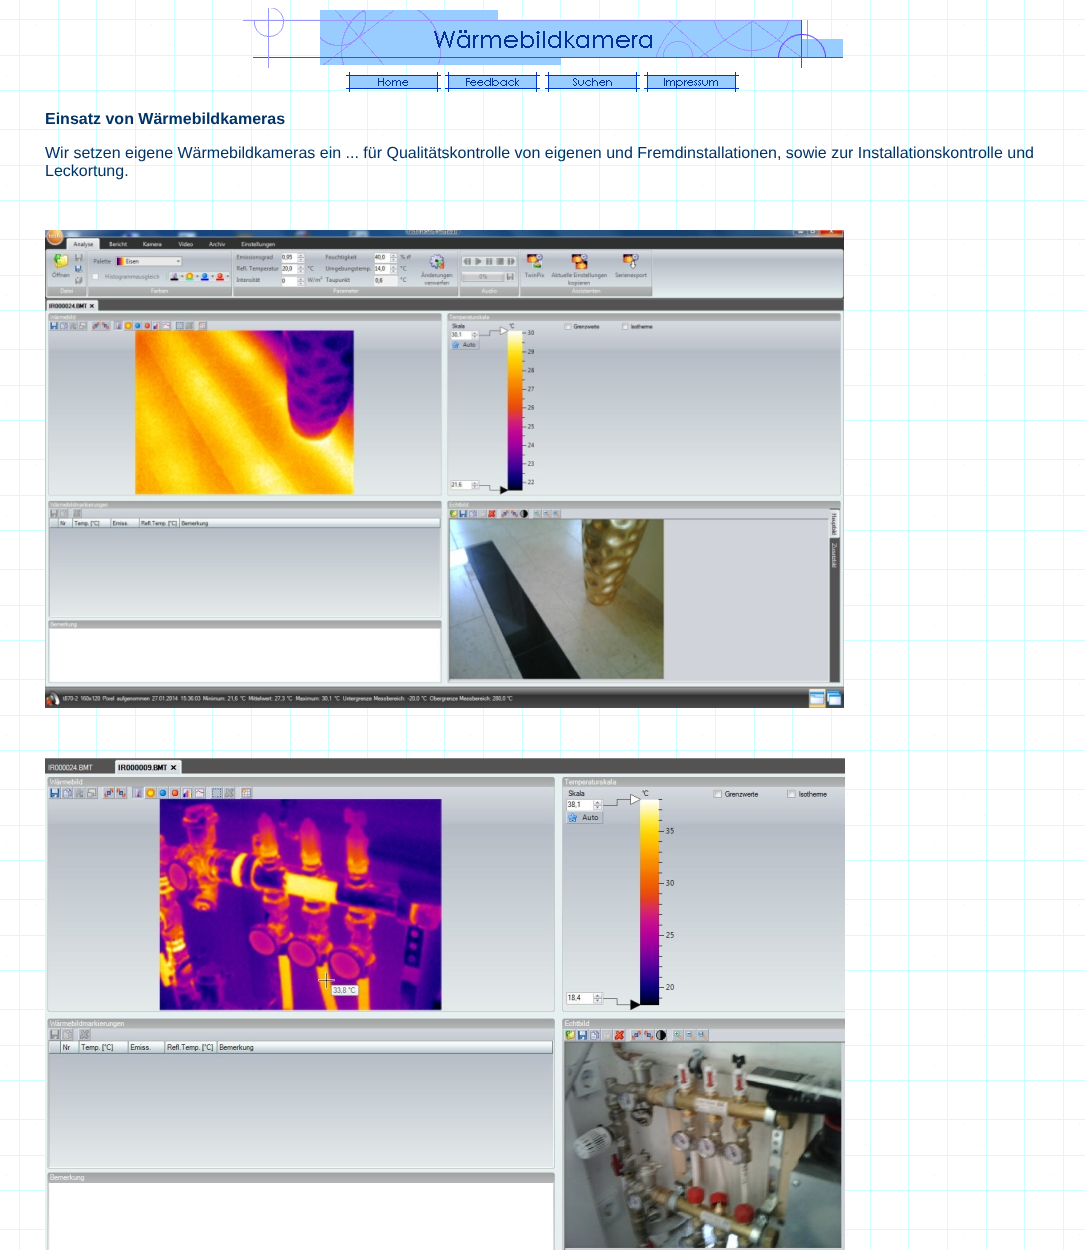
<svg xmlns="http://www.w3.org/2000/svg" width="1085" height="1250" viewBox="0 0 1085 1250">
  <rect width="100%" height="100%" fill="rgb(255,255,255)"/>
  <image x="0" y="0" width="1085" height="1250" href="pic1.png"/>
  <image x="243" y="8" width="600" height="60" href="pic2.png"/>
  <image x="346" y="72" width="95" height="20" href="pic3.png"/>
  <image x="445" y="72" width="95" height="20" href="pic4.png"/>
  <image x="545" y="72" width="95" height="20" href="pic5.png"/>
  <image x="644" y="72" width="95" height="20" href="pic6.png"/>
  <text x="45" y="124" font-family="Liberation Sans" font-size="16" font-weight="bold" fill="rgb(0,51,102)">Einsatz von Wärmebildkameras</text>
  <g font-family="Liberation Sans" font-size="16" fill="rgb(0,51,102)">
    <text>
      <tspan x="45" y="158">Wir setzen eigene Wärmebildkameras ein ... für Qualitätskontrolle von eigenen und Fremdinstallationen, sowie zur Installationskontrolle und</tspan>
      <tspan x="45" y="176">Leckortung.</tspan>
    </text>
  </g>
  <image x="45" y="230" width="799" height="478" href="pic7.png"/>
  <image x="45" y="758" width="800" height="492" href="pic8.png"/>
</svg>
